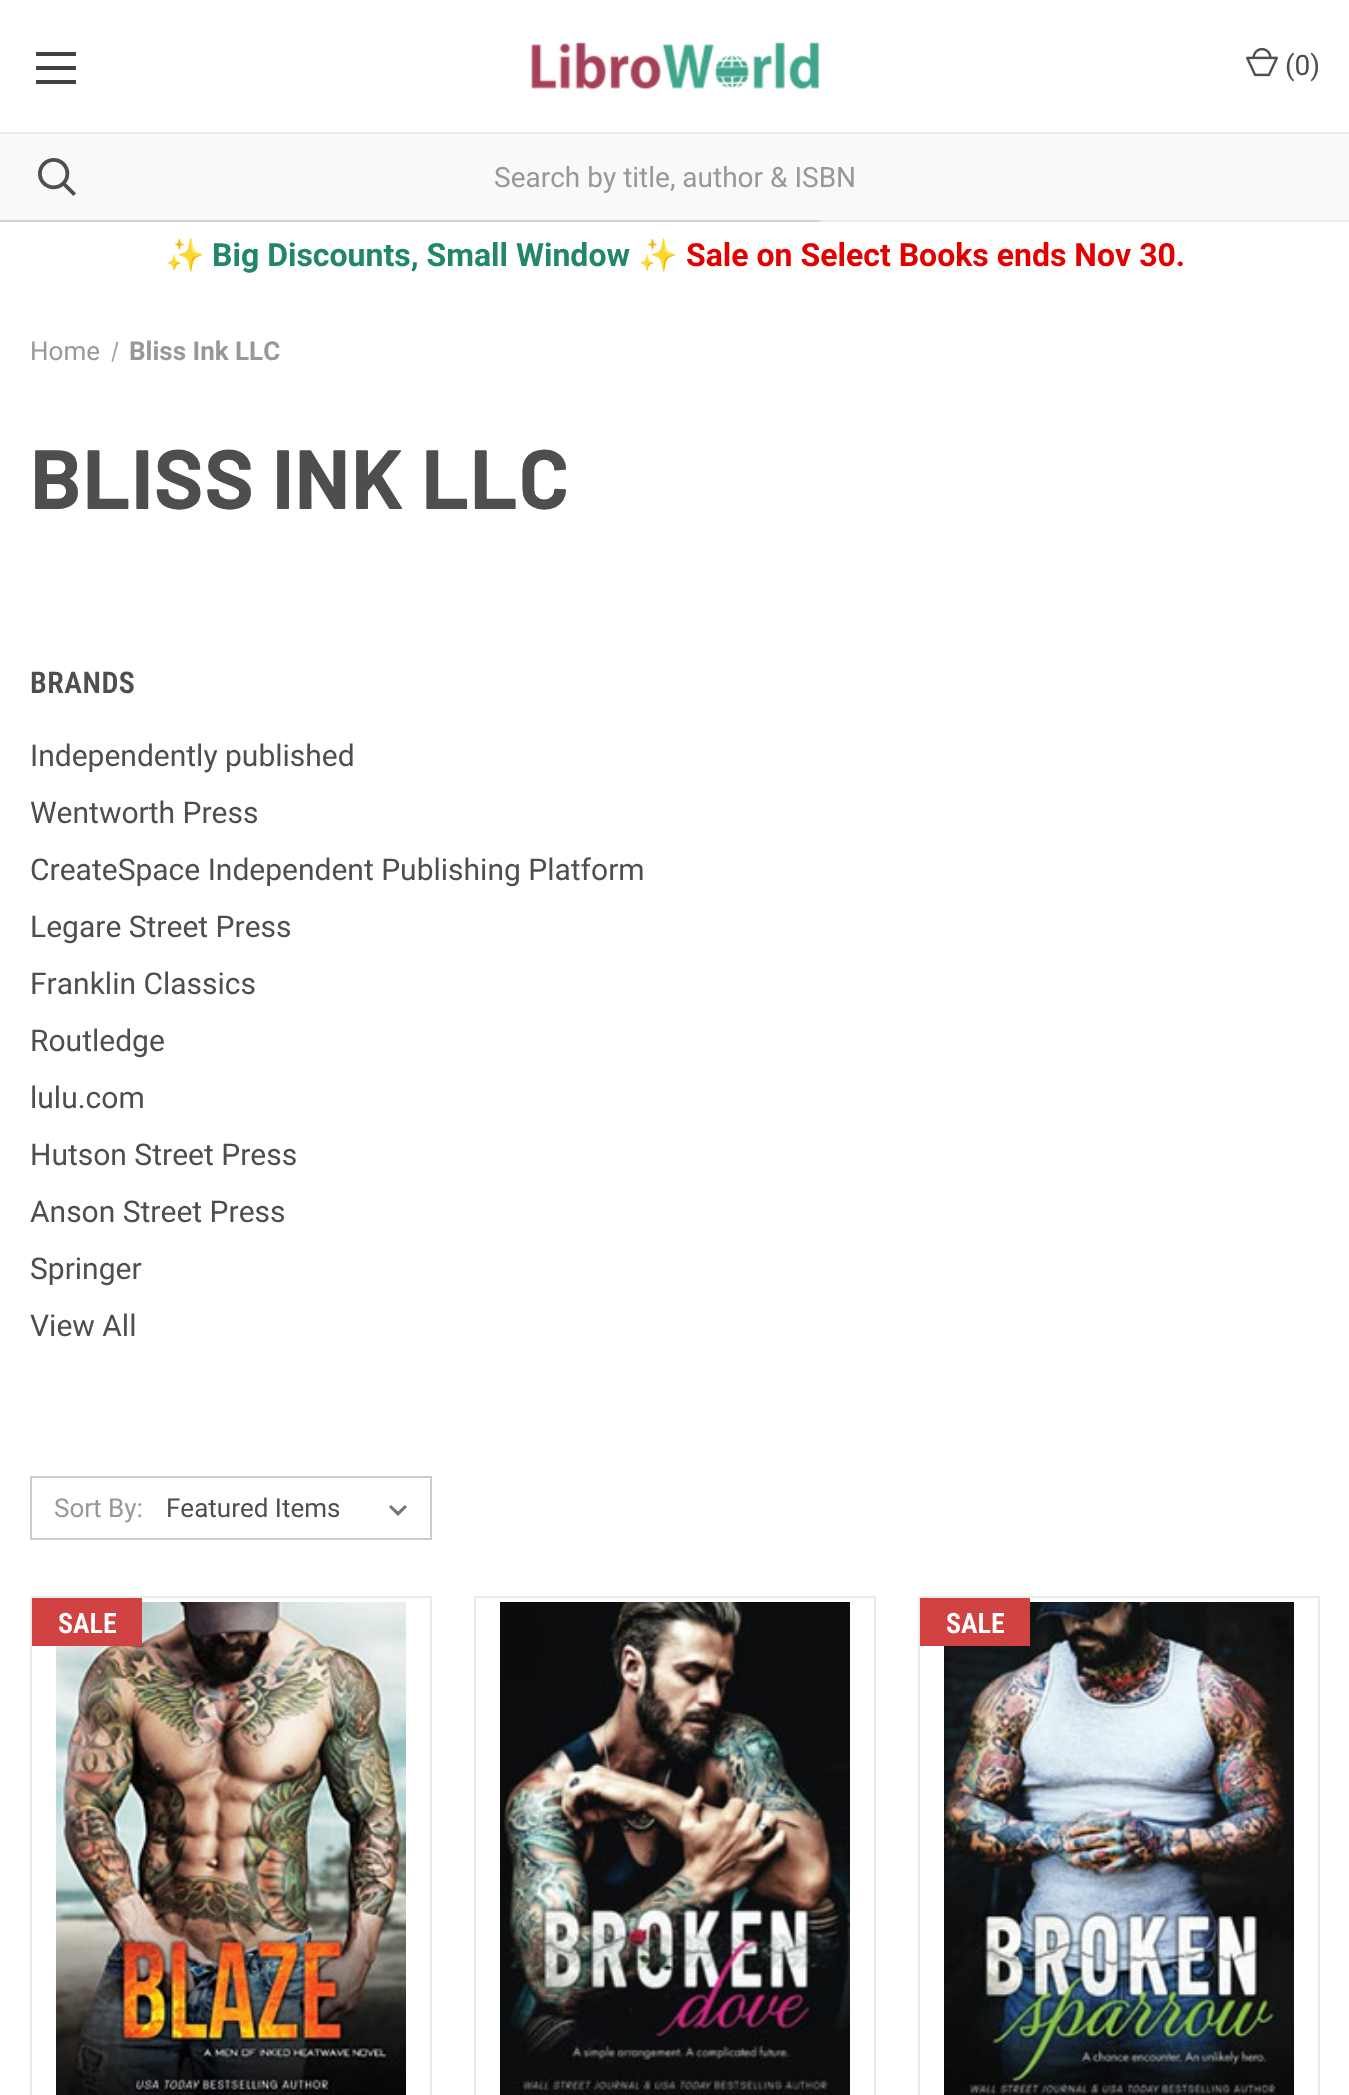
<svg xmlns="http://www.w3.org/2000/svg" width="1349" height="2095" viewBox="0 0 1349 2095">
  <style>*{font-kerning:none!important;font-variant-ligatures:none!important}</style>
  <rect width="100%" height="100%" fill="rgb(255,255,255)"/>
  <rect x="820" y="220" width="529" height="2" fill="rgb(235,235,235)"/>
  <rect x="36" y="66" width="40" height="4" fill="rgb(66,66,66)"/>
  <rect x="36" y="52" width="40" height="4" fill="rgb(66,66,66)"/>
  <rect x="36" y="80" width="40" height="4" fill="rgb(66,66,66)"/>
  <image x="531" y="41" width="289" height="49" href="pic1.png"/>
  <image x="1246" y="47" width="32" height="30" href="pic2.png"/>
  <text x="1285" y="75" font-family="Roboto" font-size="28" fill="rgb(78,78,78)">(0)</text>
  <rect x="0" y="134" width="1349" height="86" fill="rgb(249,249,249)"/>
  <image x="38" y="158" width="38" height="38" href="pic3.png"/>
  <rect x="0" y="132" width="1349" height="2" fill="rgb(235,235,235)"/>
  <text x="494" y="187" font-family="Roboto" font-size="28" fill="rgb(152,152,152)">Search by title, author &amp; ISBN</text>
  <rect x="0" y="220" width="820" height="2" fill="rgb(210,210,210)"/>
  <text x="165" y="266" font-family="Noto Color Emoji" font-size="32" font-weight="bold" fill="rgb(33,134,106)">✨</text>
  <text x="212" y="266" font-family="Roboto" font-size="32" font-weight="bold" fill="rgb(33,134,106)">Big Discounts, Small Window</text>
  <text x="638" y="266" font-family="Noto Color Emoji" font-size="32" font-weight="bold" fill="rgb(33,134,106)">✨</text>
  <text x="686" y="266" font-family="Roboto" font-size="32" font-weight="bold" fill="rgb(229,0,0)">Sale on Select Books ends Nov 30.</text>
  <text x="30" y="360" font-family="Roboto" font-size="26" fill="rgb(152,152,152)">Home</text>
  <path d="M116.5 341.5L118.5 342L113 362L111.5 361.5Z" fill="rgb(163,163,163)"/>
  <text x="129" y="360" font-family="Roboto" font-size="26" font-weight="bold" fill="rgb(152,152,152)">Bliss Ink LLC</text>
  <text x="30" y="509" font-family="Barlow" font-size="84" font-weight="bold" letter-spacing="0.5" fill="rgb(78,78,78)">BLISS INK LLC</text>
  <text x="30" y="693" font-family="Roboto Condensed" font-size="30" font-weight="600" letter-spacing="0.5" fill="rgb(78,78,78)">BRANDS</text>
  <g font-family="Roboto" font-size="30" fill="rgb(78,78,78)">
    <text>
      <tspan x="30" y="766">Independently published</tspan>
      <tspan x="30" y="823">Wentworth Press</tspan>
      <tspan x="30" y="880">CreateSpace Independent Publishing Platform</tspan>
      <tspan x="30" y="937">Legare Street Press</tspan>
      <tspan x="30" y="994">Franklin Classics</tspan>
      <tspan x="30" y="1051">Routledge</tspan>
      <tspan x="30" y="1108">lulu.com</tspan>
      <tspan x="30" y="1165">Hutson Street Press</tspan>
      <tspan x="30" y="1222">Anson Street Press</tspan>
      <tspan x="30" y="1279">Springer</tspan>
      <tspan x="30" y="1336">View All</tspan>
    </text>
  </g>
  <rect x="31" y="1477" width="400" height="62" fill="none" stroke="rgb(204,204,204)" stroke-width="2"/>
  <text x="54" y="1517" font-family="Roboto" font-size="26" fill="rgb(152,152,152)">Sort By:</text>
  <path d="M405 1505L398 1511.5L391 1505L389 1507L398 1516L407 1507Z" fill="rgb(117,117,117)"/>
  <text x="166" y="1517" font-family="Roboto" font-size="26" fill="rgb(78,78,78)">Featured Items</text>
  <rect x="31" y="1597" width="400" height="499" fill="none" stroke="rgb(235,235,235)" stroke-width="2"/>
  <image x="56" y="1602" width="350" height="493" href="pic4.png"/>
  <rect x="32" y="1598" width="110" height="48" fill="rgb(209,67,67)"/>
  <text x="58" y="1633" font-family="Roboto Condensed" font-size="28" font-weight="600" fill="rgb(255,255,255)">SALE</text>
  <rect x="475" y="1597" width="400" height="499" fill="none" stroke="rgb(235,235,235)" stroke-width="2"/>
  <image x="500" y="1602" width="350" height="493" href="pic5.png"/>
  <rect x="919" y="1597" width="400" height="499" fill="none" stroke="rgb(235,235,235)" stroke-width="2"/>
  <image x="944" y="1602" width="350" height="493" href="pic6.png"/>
  <rect x="920" y="1598" width="110" height="48" fill="rgb(209,67,67)"/>
  <text x="946" y="1633" font-family="Roboto Condensed" font-size="28" font-weight="600" fill="rgb(255,255,255)">SALE</text>
</svg>
